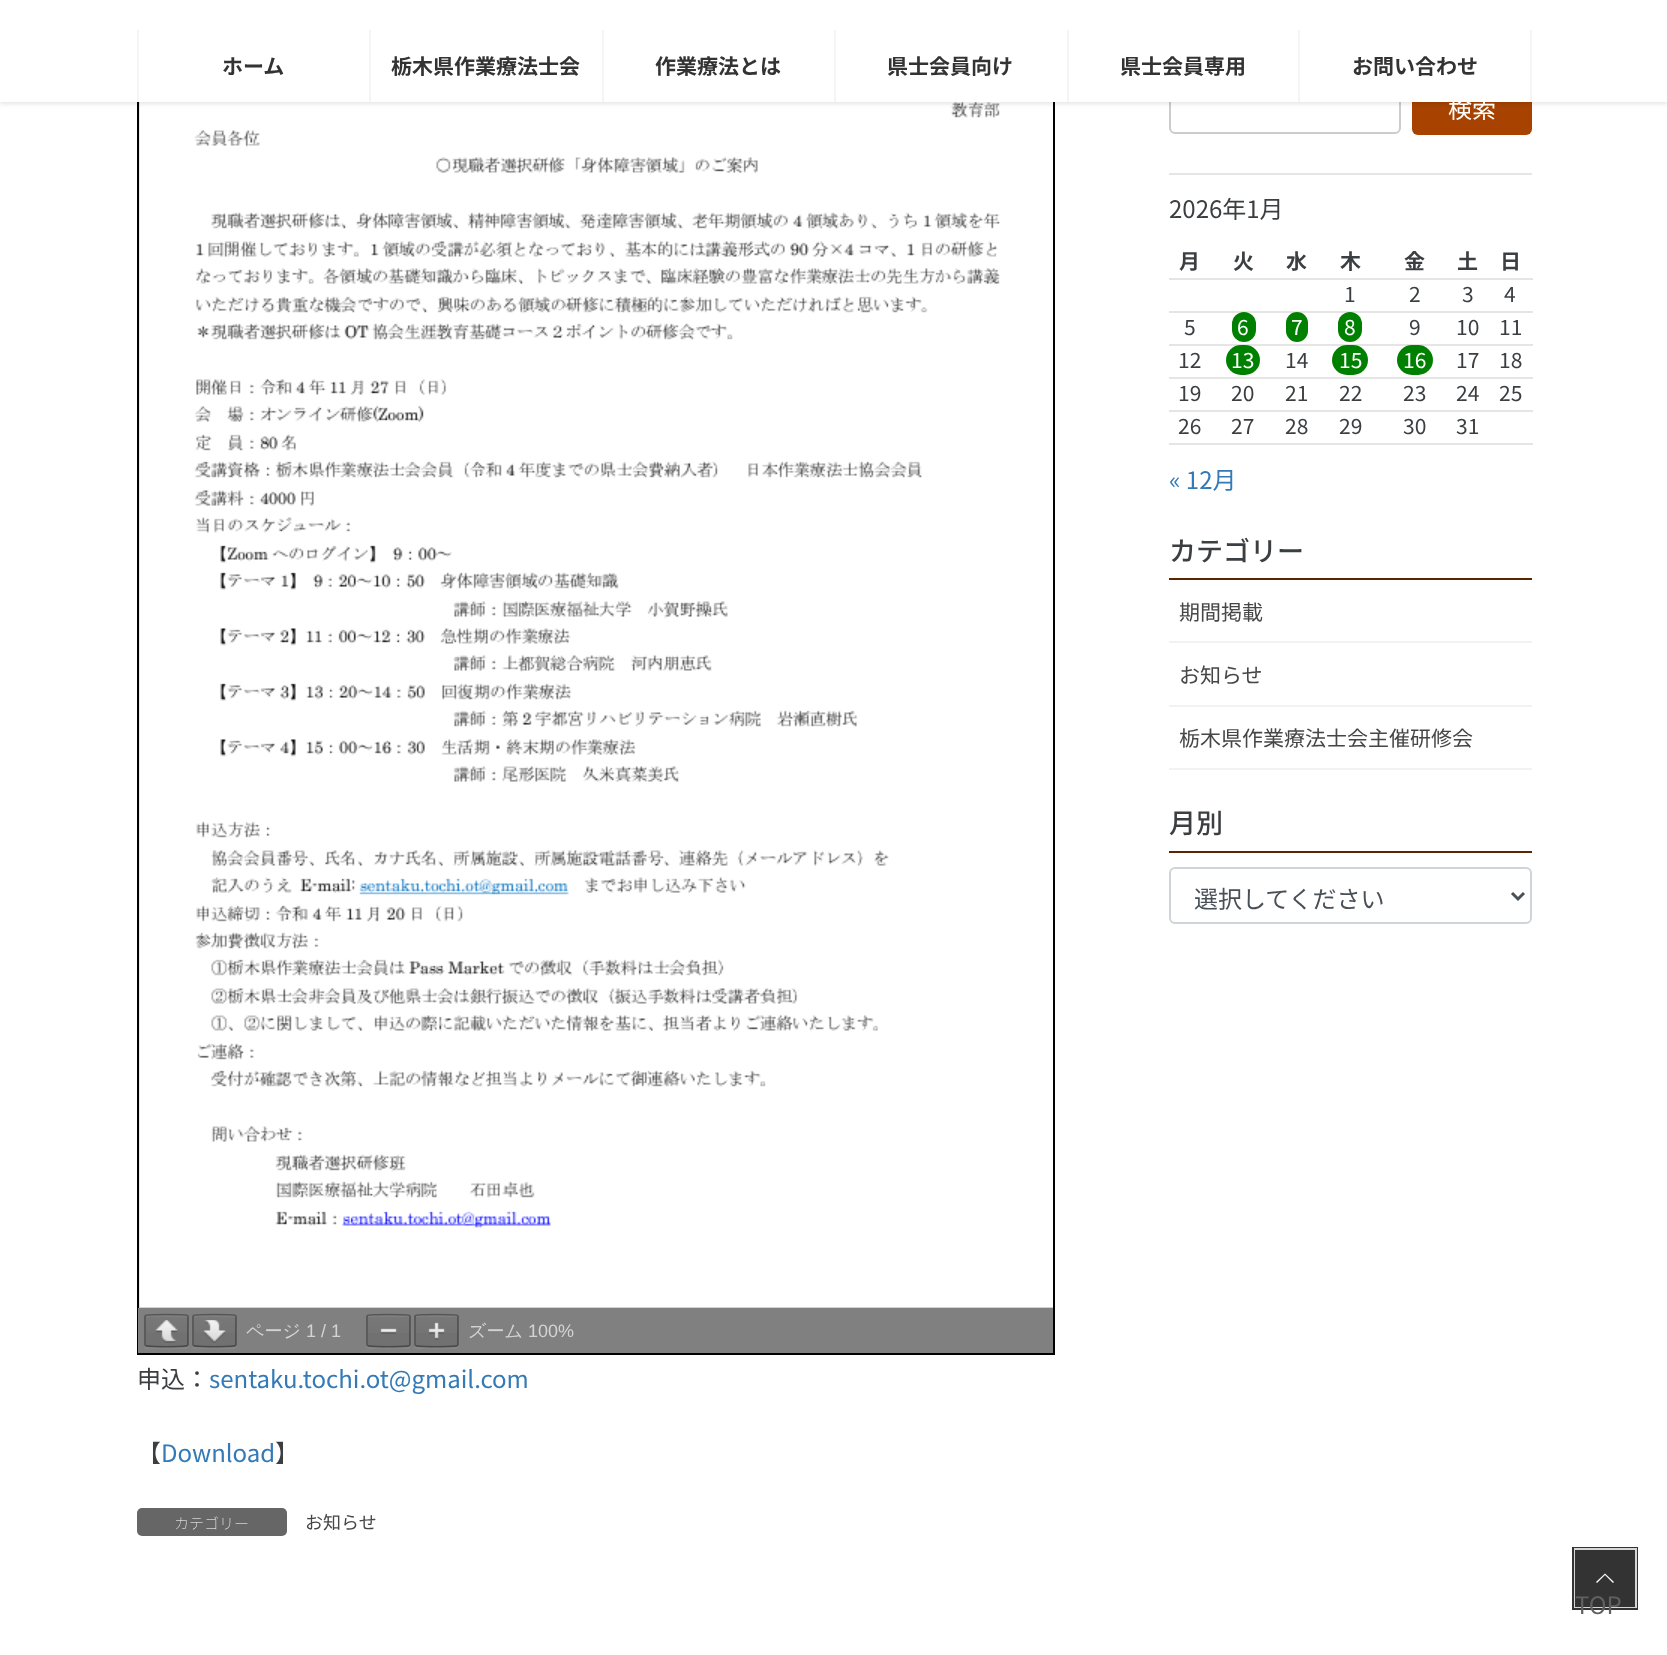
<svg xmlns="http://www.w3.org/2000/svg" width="1667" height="1655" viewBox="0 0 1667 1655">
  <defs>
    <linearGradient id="g1" gradientUnits="userSpaceOnUse" x1="167" y1="1316" x2="167" y2="1346"><stop offset="0" stop-color="rgb(255,255,255)" stop-opacity="0.05"/><stop offset="1" stop-color="rgb(255,255,255)" stop-opacity="0"/></linearGradient>
    <linearGradient id="g2" gradientUnits="userSpaceOnUse" x1="215" y1="1316" x2="215" y2="1346"><stop offset="0" stop-color="rgb(255,255,255)" stop-opacity="0.05"/><stop offset="1" stop-color="rgb(255,255,255)" stop-opacity="0"/></linearGradient>
    <linearGradient id="g3" gradientUnits="userSpaceOnUse" x1="389" y1="1316" x2="389" y2="1346"><stop offset="0" stop-color="rgb(255,255,255)" stop-opacity="0.05"/><stop offset="1" stop-color="rgb(255,255,255)" stop-opacity="0"/></linearGradient>
    <linearGradient id="g4" gradientUnits="userSpaceOnUse" x1="437" y1="1316" x2="437" y2="1346"><stop offset="0" stop-color="rgb(255,255,255)" stop-opacity="0.05"/><stop offset="1" stop-color="rgb(255,255,255)" stop-opacity="0"/></linearGradient>
  </defs>
  <rect width="100%" height="100%" fill="rgb(255,255,255)"/>
  <rect x="1170" y="82" width="230" height="51" rx="5" fill="none" stroke="rgb(204,204,204)" stroke-width="2"/>
  <rect x="1412" y="81" width="120" height="54" rx="6" fill="rgb(167,66,0)"/>
  <rect x="139" y="102" width="914" height="1206" fill="rgb(211,211,211)"/>
  <rect x="138" y="-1" width="916" height="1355" fill="none" stroke="rgb(0,0,0)" stroke-width="2"/>
  <rect x="140" y="1306" width="913" height="1" fill="rgb(255,255,255)"/>
  <image x="139" y="102" width="914" height="1205" href="pic1.png"/>
  <rect x="0" y="2" width="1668" height="102" fill="rgba(0,0,0,0.1)" filter="blur(2px)"/>
  <rect x="0" y="0" width="1667" height="102" fill="rgb(255,255,255)"/>
  <rect x="137" y="30" width="2" height="72" fill="rgb(245,245,245)"/>
  <text x="222" y="74" font-family="Noto Sans JP" font-size="21" font-weight="bold" fill="rgb(51,51,51)">ホーム</text>
  <rect x="369" y="30" width="2" height="72" fill="rgb(245,245,245)"/>
  <text x="391" y="74" font-family="Noto Sans JP" font-size="21" font-weight="bold" fill="rgb(51,51,51)">栃木県作業療法士会</text>
  <rect x="602" y="30" width="2" height="72" fill="rgb(245,245,245)"/>
  <text x="655" y="74" font-family="Noto Sans JP" font-size="21" font-weight="bold" fill="rgb(51,51,51)">作業療法とは</text>
  <rect x="834" y="30" width="2" height="72" fill="rgb(245,245,245)"/>
  <text x="887" y="74" font-family="Noto Sans JP" font-size="21" font-weight="bold" fill="rgb(51,51,51)">県士会員向け</text>
  <rect x="1067" y="30" width="2" height="72" fill="rgb(245,245,245)"/>
  <text x="1120" y="74" font-family="Noto Sans JP" font-size="21" font-weight="bold" fill="rgb(51,51,51)">県士会員専用</text>
  <rect x="1530" y="30" width="2" height="72" fill="rgb(245,245,245)"/>
  <rect x="1298" y="30" width="2" height="72" fill="rgb(245,245,245)"/>
  <text x="1352" y="74" font-family="Noto Sans JP" font-size="21" font-weight="bold" fill="rgb(51,51,51)">お問い合わせ</text>
  <text x="1448" y="118" font-family="Noto Sans JP" font-size="24" fill="rgb(255,255,255)">検索</text>
  <rect x="1169" y="173" width="363" height="2" fill="rgb(229,229,229)"/>
  <text x="1169" y="218" font-family="Noto Sans JP" font-size="24" fill="rgb(60,63,65)">2026年1月</text>
  <g font-family="Noto Sans JP" font-size="21" font-weight="bold" fill="rgb(60,63,65)">
    <text x="1179" y="269">月</text>
    <text x="1233" y="269">火</text>
    <text x="1286" y="269">水</text>
    <text x="1340" y="269">木</text>
    <text x="1404" y="269">金</text>
    <text x="1457" y="269">土</text>
  </g>
  <rect x="1169" y="278" width="364" height="2" fill="rgb(229,229,229)"/>
  <text x="1500" y="269" font-family="Noto Sans JP" font-size="21" font-weight="bold" fill="rgb(60,63,65)">日</text>
  <g font-family="Noto Sans JP" font-size="21" fill="rgb(60,63,65)">
    <text x="1344" y="302">1</text>
    <text x="1409" y="302">2</text>
    <text x="1462" y="302">3</text>
  </g>
  <rect x="1169" y="311" width="364" height="2" fill="rgb(229,229,229)"/>
  <g font-family="Noto Sans JP" font-size="21" fill="rgb(60,63,65)">
    <text x="1504" y="302">4</text>
    <text x="1184" y="335">5</text>
  </g>
  <rect x="1232" y="312" width="24" height="30" rx="12" fill="rgb(0,128,0)"/>
  <text x="1237" y="335" font-family="Noto Sans JP" font-size="21" fill="rgb(255,255,255)">6</text>
  <rect x="1286" y="312" width="22" height="30" rx="11" fill="rgb(0,128,0)"/>
  <text x="1291" y="335" font-family="Noto Sans JP" font-size="21" fill="rgb(255,255,255)">7</text>
  <rect x="1338" y="312" width="24" height="30" rx="12" fill="rgb(0,128,0)"/>
  <text x="1344" y="335" font-family="Noto Sans JP" font-size="21" fill="rgb(255,255,255)">8</text>
  <g font-family="Noto Sans JP" font-size="21" fill="rgb(60,63,65)">
    <text x="1409" y="335">9</text>
    <text x="1456" y="335">10</text>
  </g>
  <rect x="1169" y="344" width="364" height="2" fill="rgb(229,229,229)"/>
  <g font-family="Noto Sans JP" font-size="21" fill="rgb(60,63,65)">
    <text x="1499" y="335">11</text>
    <text x="1178" y="368">12</text>
  </g>
  <rect x="1226" y="345" width="34" height="30" rx="15" fill="rgb(0,128,0)"/>
  <text x="1231" y="368" font-family="Noto Sans JP" font-size="21" fill="rgb(255,255,255)">13</text>
  <text x="1285" y="368" font-family="Noto Sans JP" font-size="21" fill="rgb(60,63,65)">14</text>
  <rect x="1332" y="345" width="36" height="30" rx="15" fill="rgb(0,128,0)"/>
  <text x="1339" y="368" font-family="Noto Sans JP" font-size="21" fill="rgb(255,255,255)">15</text>
  <rect x="1397" y="345" width="36" height="30" rx="15" fill="rgb(0,128,0)"/>
  <text x="1403" y="368" font-family="Noto Sans JP" font-size="21" fill="rgb(255,255,255)">16</text>
  <text x="1456" y="368" font-family="Noto Sans JP" font-size="21" fill="rgb(60,63,65)">17</text>
  <rect x="1169" y="377" width="364" height="2" fill="rgb(229,229,229)"/>
  <g font-family="Noto Sans JP" font-size="21" fill="rgb(60,63,65)">
    <text x="1499" y="368">18</text>
    <text x="1178" y="401">19</text>
    <text x="1231" y="401">20</text>
    <text x="1285" y="401">21</text>
    <text x="1339" y="401">22</text>
    <text x="1403" y="401">23</text>
    <text x="1456" y="401">24</text>
  </g>
  <rect x="1169" y="410" width="364" height="2" fill="rgb(229,229,229)"/>
  <g font-family="Noto Sans JP" font-size="21" fill="rgb(60,63,65)">
    <text x="1499" y="401">25</text>
    <text x="1178" y="434">26</text>
    <text x="1231" y="434">27</text>
    <text x="1285" y="434">28</text>
    <text x="1339" y="434">29</text>
    <text x="1403" y="434">30</text>
    <text x="1456" y="434">31</text>
  </g>
  <rect x="1169" y="443" width="364" height="2" fill="rgb(229,229,229)"/>
  <text x="1169" y="489" font-family="Noto Sans JP" font-size="24" fill="rgb(51,122,183)">« 12月</text>
  <rect x="1169" y="578" width="363" height="2" fill="rgb(92,36,0)"/>
  <text x="1169" y="561" font-family="Noto Sans JP" font-size="27" font-weight="500" fill="rgb(60,63,65)">カテゴリー</text>
  <rect x="1169" y="641" width="363" height="2" fill="rgb(242,242,242)"/>
  <text x="1179" y="620" font-family="Noto Sans JP" font-size="21" fill="rgb(70,70,70)">期間掲載</text>
  <rect x="1169" y="705" width="363" height="2" fill="rgb(242,242,242)"/>
  <text x="1179" y="683" font-family="Noto Sans JP" font-size="21" fill="rgb(70,70,70)">お知らせ</text>
  <rect x="1169" y="768" width="363" height="2" fill="rgb(242,242,242)"/>
  <text x="1179" y="746" font-family="Noto Sans JP" font-size="21" fill="rgb(70,70,70)">栃木県作業療法士会主催研修会</text>
  <rect x="1169" y="851" width="363" height="2" fill="rgb(92,36,0)"/>
  <text x="1169" y="833" font-family="Noto Sans JP" font-size="27" font-weight="500" fill="rgb(60,63,65)">月別</text>
  <rect x="1170" y="868" width="361" height="55" rx="5" fill="none" stroke="rgb(206,212,218)" stroke-width="2"/>
  <path d="M1512 893L1518 899L1524 893" fill="none" stroke="rgb(73,80,87)" stroke-width="3"/>
  <text x="1194" y="908" font-family="Noto Sans JP" font-size="24" fill="rgb(73,80,87)">選択してください</text>
  <rect x="138" y="1308" width="915" height="45" fill="rgb(128,128,128)"/>
  <path d="M144 1344C144 1351 147 1349 154 1349H180C186 1349 189 1351 189 1344C189 1346 188 1347 186 1347H147C145 1347 144 1346 144 1344Z" fill="rgb(134,134,134)"/>
  <rect x="146" y="1316" width="42" height="30" rx="1.5" fill="rgb(113,113,113)"/>
  <rect x="146" y="1316" width="42" height="17" fill="url(#g1)"/>
  <path d="M147 1317H186L188 1318C188 1314 182 1316 180 1316H154C152 1316 146 1314 146 1318Z" fill="rgb(127,127,127)"/>
  <path d="M145.5 1315.5C146.5 1314 186.5 1314 187.5 1315.5" fill="none" stroke="rgb(87,87,87)" stroke-width="1.5"/>
  <path d="M187.5 1315.5C188 1316 188 1316.5 188 1317V1344C188 1344.5 188 1345 187.5 1345.5" fill="none" stroke="rgba(0,0,0,0.38)" stroke-width="1.5"/>
  <path d="M187.5 1345.5C186.5 1347 146.5 1347 145.5 1345.5" fill="none" stroke="rgba(0,0,0,0.42)" stroke-width="1.5"/>
  <path d="M145.5 1345.5C145 1345 145 1344.5 145 1344V1317C145 1316.5 145 1316 145.5 1315.5" fill="none" stroke="rgba(0,0,0,0.38)" stroke-width="1.5"/>
  <image x="155" y="1320" width="23" height="23" href="pic2.png"/>
  <path d="M192 1344C192 1351 195 1349 202 1349H228C234 1349 237 1351 237 1344C237 1346 236 1347 234 1347H195C193 1347 192 1346 192 1344Z" fill="rgb(134,134,134)"/>
  <rect x="194" y="1316" width="42" height="30" rx="1.5" fill="rgb(113,113,113)"/>
  <rect x="194" y="1316" width="42" height="17" fill="url(#g2)"/>
  <path d="M195 1317H234L236 1318C236 1314 230 1316 228 1316H202C200 1316 194 1314 194 1318Z" fill="rgb(127,127,127)"/>
  <path d="M193.5 1315.5C194.5 1314 234.5 1314 235.5 1315.5" fill="none" stroke="rgb(87,87,87)" stroke-width="1.5"/>
  <path d="M235.5 1315.5C236 1316 236 1316.5 236 1317V1344C236 1344.5 236 1345 235.5 1345.5" fill="none" stroke="rgba(0,0,0,0.38)" stroke-width="1.5"/>
  <path d="M235.5 1345.5C234.5 1347 194.5 1347 193.5 1345.5" fill="none" stroke="rgba(0,0,0,0.42)" stroke-width="1.5"/>
  <path d="M193.5 1345.5C193 1345 193 1344.5 193 1344V1317C193 1316.5 193 1316 193.5 1315.5" fill="none" stroke="rgba(0,0,0,0.38)" stroke-width="1.5"/>
  <image x="203" y="1320" width="23" height="23" href="pic3.png"/>
  <text x="246" y="1337" font-family="WenQuanYi Zen Hei" font-size="18" font-weight="500" fill="rgb(211,211,211)">ページ</text>
  <text x="306" y="1337" font-family="Liberation Sans" font-size="18" fill="rgb(211,211,211)">1 / 1</text>
  <path d="M366 1344C366 1351 369 1349 376 1349H402C408 1349 411 1351 411 1344C411 1346 410 1347 408 1347H369C367 1347 366 1346 366 1344Z" fill="rgb(134,134,134)"/>
  <rect x="368" y="1316" width="42" height="30" rx="1.5" fill="rgb(113,113,113)"/>
  <rect x="368" y="1316" width="42" height="17" fill="url(#g3)"/>
  <path d="M369 1317H408L410 1318C410 1314 404 1316 402 1316H376C374 1316 368 1314 368 1318Z" fill="rgb(127,127,127)"/>
  <path d="M367.5 1315.5C368.5 1314 408.5 1314 409.5 1315.5" fill="none" stroke="rgb(87,87,87)" stroke-width="1.5"/>
  <path d="M409.5 1315.5C410 1316 410 1316.5 410 1317V1344C410 1344.5 410 1345 409.5 1345.5" fill="none" stroke="rgba(0,0,0,0.38)" stroke-width="1.5"/>
  <path d="M409.5 1345.5C408.5 1347 368.5 1347 367.5 1345.5" fill="none" stroke="rgba(0,0,0,0.42)" stroke-width="1.5"/>
  <path d="M367.5 1345.5C367 1345 367 1344.5 367 1344V1317C367 1316.5 367 1316 367.5 1315.5" fill="none" stroke="rgba(0,0,0,0.38)" stroke-width="1.5"/>
  <image x="380" y="1328" width="17" height="6" href="pic4.png"/>
  <path d="M414 1344C414 1351 417 1349 424 1349H450C456 1349 459 1351 459 1344C459 1346 458 1347 456 1347H417C415 1347 414 1346 414 1344Z" fill="rgb(134,134,134)"/>
  <rect x="416" y="1316" width="42" height="30" rx="1.5" fill="rgb(113,113,113)"/>
  <rect x="416" y="1316" width="42" height="17" fill="url(#g4)"/>
  <path d="M417 1317H456L458 1318C458 1314 452 1316 450 1316H424C422 1316 416 1314 416 1318Z" fill="rgb(127,127,127)"/>
  <path d="M415.5 1315.5C416.5 1314 456.5 1314 457.5 1315.5" fill="none" stroke="rgb(87,87,87)" stroke-width="1.5"/>
  <path d="M457.5 1315.5C458 1316 458 1316.5 458 1317V1344C458 1344.5 458 1345 457.5 1345.5" fill="none" stroke="rgba(0,0,0,0.38)" stroke-width="1.5"/>
  <path d="M457.5 1345.5C456.5 1347 416.5 1347 415.5 1345.5" fill="none" stroke="rgba(0,0,0,0.42)" stroke-width="1.5"/>
  <path d="M415.5 1345.5C415 1345 415 1344.5 415 1344V1317C415 1316.5 415 1316 415.5 1315.5" fill="none" stroke="rgba(0,0,0,0.38)" stroke-width="1.5"/>
  <image x="428" y="1322" width="17" height="18" href="pic5.png"/>
  <text x="468" y="1337" font-family="WenQuanYi Zen Hei" font-size="18" font-weight="500" fill="rgb(211,211,211)">ズーム</text>
  <text x="528" y="1337" font-family="Liberation Sans" font-size="18" fill="rgb(211,211,211)">100%</text>
  <text x="137" y="1388" font-family="Noto Sans JP" font-size="24" fill="rgb(60,63,65)">申込：</text>
  <text x="209" y="1388" font-family="Noto Sans JP" font-size="24" fill="rgb(51,122,183)">sentaku.tochi.ot@gmail.com</text>
  <text x="137" y="1462" font-family="Noto Sans JP" font-size="24" fill="rgb(60,63,65)">【</text>
  <text x="161" y="1462" font-family="Noto Sans JP" font-size="24" fill="rgb(51,122,183)">Download</text>
  <text x="275" y="1462" font-family="Noto Sans JP" font-size="24" fill="rgb(60,63,65)">】</text>
  <rect x="137" y="1508" width="150" height="28" rx="5" fill="rgb(102,102,102)"/>
  <text x="174" y="1529" font-family="Noto Sans JP" font-size="15" font-weight="100" fill="rgb(255,255,255)">カテゴリー</text>
  <text x="305" y="1529" font-family="Noto Sans JP" font-size="18" fill="rgb(70,70,70)">お知らせ</text>
  <rect x="1573.5" y="1548.5" width="63" height="60" fill="none" stroke="rgb(51,51,51)" stroke-width="3"/>
  <rect x="1575" y="1549" width="61" height="58" fill="none" stroke="rgba(255,255,255,0.8)" stroke-width="2"/>
  <rect x="1575" y="1550" width="60" height="57" fill="rgb(51,51,51)"/>
  <path d="M1614 1582L1613 1583L1605 1575L1597 1583L1596 1582L1605 1573.5Z" fill="rgb(255,255,255)"/>
  <text x="1575" y="1614" font-family="Noto Sans JP" font-size="24" fill="rgb(96,96,96)">TOP</text>
</svg>
